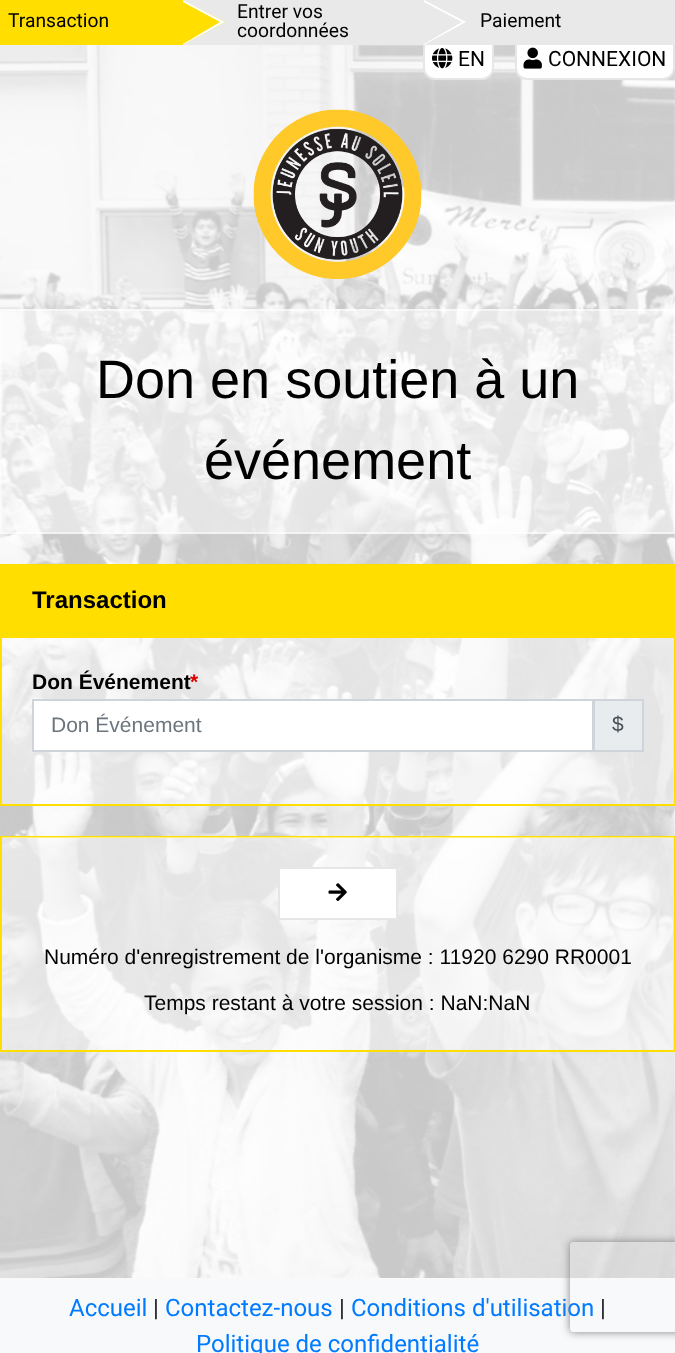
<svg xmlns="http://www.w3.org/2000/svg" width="675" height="1353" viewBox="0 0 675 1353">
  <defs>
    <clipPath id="clip1"><path d="M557 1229H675V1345H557ZM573 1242H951C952.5 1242 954 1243.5 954 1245V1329C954 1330.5 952.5 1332 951 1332H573C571.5 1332 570 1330.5 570 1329V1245C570 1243.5 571.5 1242 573 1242Z" clip-rule="evenodd"/></clipPath>
  </defs>
  <rect width="100%" height="100%" fill="rgb(255,255,255)"/>
  <image x="0" y="45" width="675" height="1233" href="pic1.png"/>
  <path d="M424 40H493V68C493 74 488 79 482 79H435C429 79 424 74 424 68Z" fill="rgb(255,255,255)" stroke="rgb(230,230,230)" stroke-width="2"/>
  <path d="M516 40H674V68C674 74 669 79 663 79H527C521 79 516 74 516 68Z" fill="rgb(255,255,255)" stroke="rgb(230,230,230)" stroke-width="2"/>
  <rect x="248" y="0" width="427" height="45" fill="rgb(233,233,233)"/>
  <rect x="0" y="0" width="225" height="45" fill="rgb(255,222,0)"/>
  <path d="M183 0H248L225 22Z" fill="rgb(233,233,233)"/>
  <rect x="225" y="0" width="23" height="45" fill="rgb(233,233,233)"/>
  <path d="M248 45H183L225 22Z" fill="rgb(233,233,233)"/>
  <path d="M183 45V0L225 22Z" fill="rgb(255,255,255)"/>
  <text x="8" y="27" font-family="Roboto" font-size="19.25" fill="rgb(0,0,0)">Transaction</text>
  <path d="M183 44V2L220 22Z" fill="rgb(255,222,0)"/>
  <path d="M424 45V0L466 22Z" fill="rgb(255,255,255)"/>
  <g font-family="Roboto" font-size="19.25" fill="rgb(0,0,0)">
    <text>
      <tspan x="237" y="18">Entrer vos</tspan>
      <tspan x="237" y="37">coordonnées</tspan>
    </text>
  </g>
  <path d="M424 44V2L462 22Z" fill="rgb(233,233,233)"/>
  <text x="480" y="27" font-family="Roboto" font-size="19.25" fill="rgb(0,0,0)">Paiement</text>
  <image x="432" y="48" width="21" height="21" href="pic2.png"/>
  <text x="458" y="66" font-family="Roboto" font-size="21" fill="rgb(0,0,0)">EN</text>
  <image x="523" y="47" width="19" height="22" href="pic3.png"/>
  <text x="548" y="66" font-family="Roboto" font-size="21" fill="rgb(0,0,0)">CONNEXION</text>
  <image x="253" y="109" width="169" height="170" href="pic4.png"/>
  <rect x="0" y="309" width="675" height="225" fill="rgba(255,255,255,0.5)"/>
  <rect x="1" y="310" width="673" height="223" fill="none" stroke="rgba(255,255,255,0.5)" stroke-width="2"/>
  <g font-family="Liberation Sans" font-size="54" fill="rgb(0,0,0)">
    <text x="96" y="398">Don en soutien à un</text>
    <text x="204" y="479">événement</text>
  </g>
  <rect x="1" y="565" width="673" height="240" fill="none" stroke="rgb(255,222,0)" stroke-width="2"/>
  <rect x="2" y="566" width="671" height="72" fill="rgb(255,222,0)"/>
  <text x="32" y="608" font-family="Liberation Sans" font-size="24" font-weight="bold" fill="rgb(0,0,0)">Transaction</text>
  <rect x="2" y="638" width="672" height="166" fill="rgba(255,255,255,0.5)"/>
  <text x="32" y="689" font-family="Liberation Sans" font-size="21" font-weight="bold" fill="rgb(0,0,0)">Don Événement</text>
  <text x="190" y="689" font-family="Liberation Sans" font-size="21" font-weight="bold" fill="rgb(221,0,0)">*</text>
  <rect x="594" y="700" width="49" height="51" fill="rgb(233,236,239)" stroke="rgb(206,212,218)" stroke-width="2"/>
  <rect x="33" y="700" width="560" height="51" fill="rgb(255,255,255)" stroke="rgb(206,212,218)" stroke-width="2"/>
  <text x="51" y="732" font-family="Liberation Sans" font-size="21" fill="rgb(108,117,125)">Don Événement</text>
  <text x="612" y="731" font-family="Liberation Sans" font-size="21" fill="rgb(73,80,87)">$</text>
  <rect x="1" y="837" width="673" height="214" fill="none" stroke="rgb(255,222,0)" stroke-width="2"/>
  <rect x="2" y="837" width="672" height="213" fill="rgba(255,255,255,0.5)"/>
  <rect x="279" y="868" width="118" height="51" fill="rgb(255,255,255)" stroke="rgb(230,230,230)" stroke-width="2"/>
  <image x="328" y="883" width="19" height="18" href="pic5.png"/>
  <g font-family="Liberation Sans" font-size="21" fill="rgb(0,0,0)">
    <text x="44" y="964">Numéro d'enregistrement de l'organisme : 11920 6290 RR0001</text>
    <text x="144" y="1010">Temps restant à votre session : NaN:NaN</text>
  </g>
  <rect x="0" y="1278" width="675" height="75" fill="rgb(248,249,250)"/>
  <text x="69" y="1316" font-family="Roboto" font-size="24" fill="rgb(0,123,255)">Accueil</text>
  <text x="153" y="1316" font-family="Roboto" font-size="24" fill="rgb(33,37,41)">|</text>
  <text x="165" y="1316" font-family="Roboto" font-size="24" fill="rgb(0,123,255)">Contactez-nous</text>
  <text x="339" y="1316" font-family="Roboto" font-size="24" fill="rgb(33,37,41)">|</text>
  <text x="351" y="1316" font-family="Roboto" font-size="24" fill="rgb(0,123,255)">Conditions d'utilisation</text>
  <text x="600" y="1316" font-family="Roboto" font-size="24" fill="rgb(33,37,41)">|</text>
  <text x="196" y="1352" font-family="Roboto" font-size="24" fill="rgb(0,123,255)">Politique de confidentialité</text>
  <g clip-path="url(#clip1)">
    <rect x="570" y="1242" width="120" height="90" rx="3" fill="rgb(128,128,128)" filter="blur(4px)"/>
  </g>
</svg>
